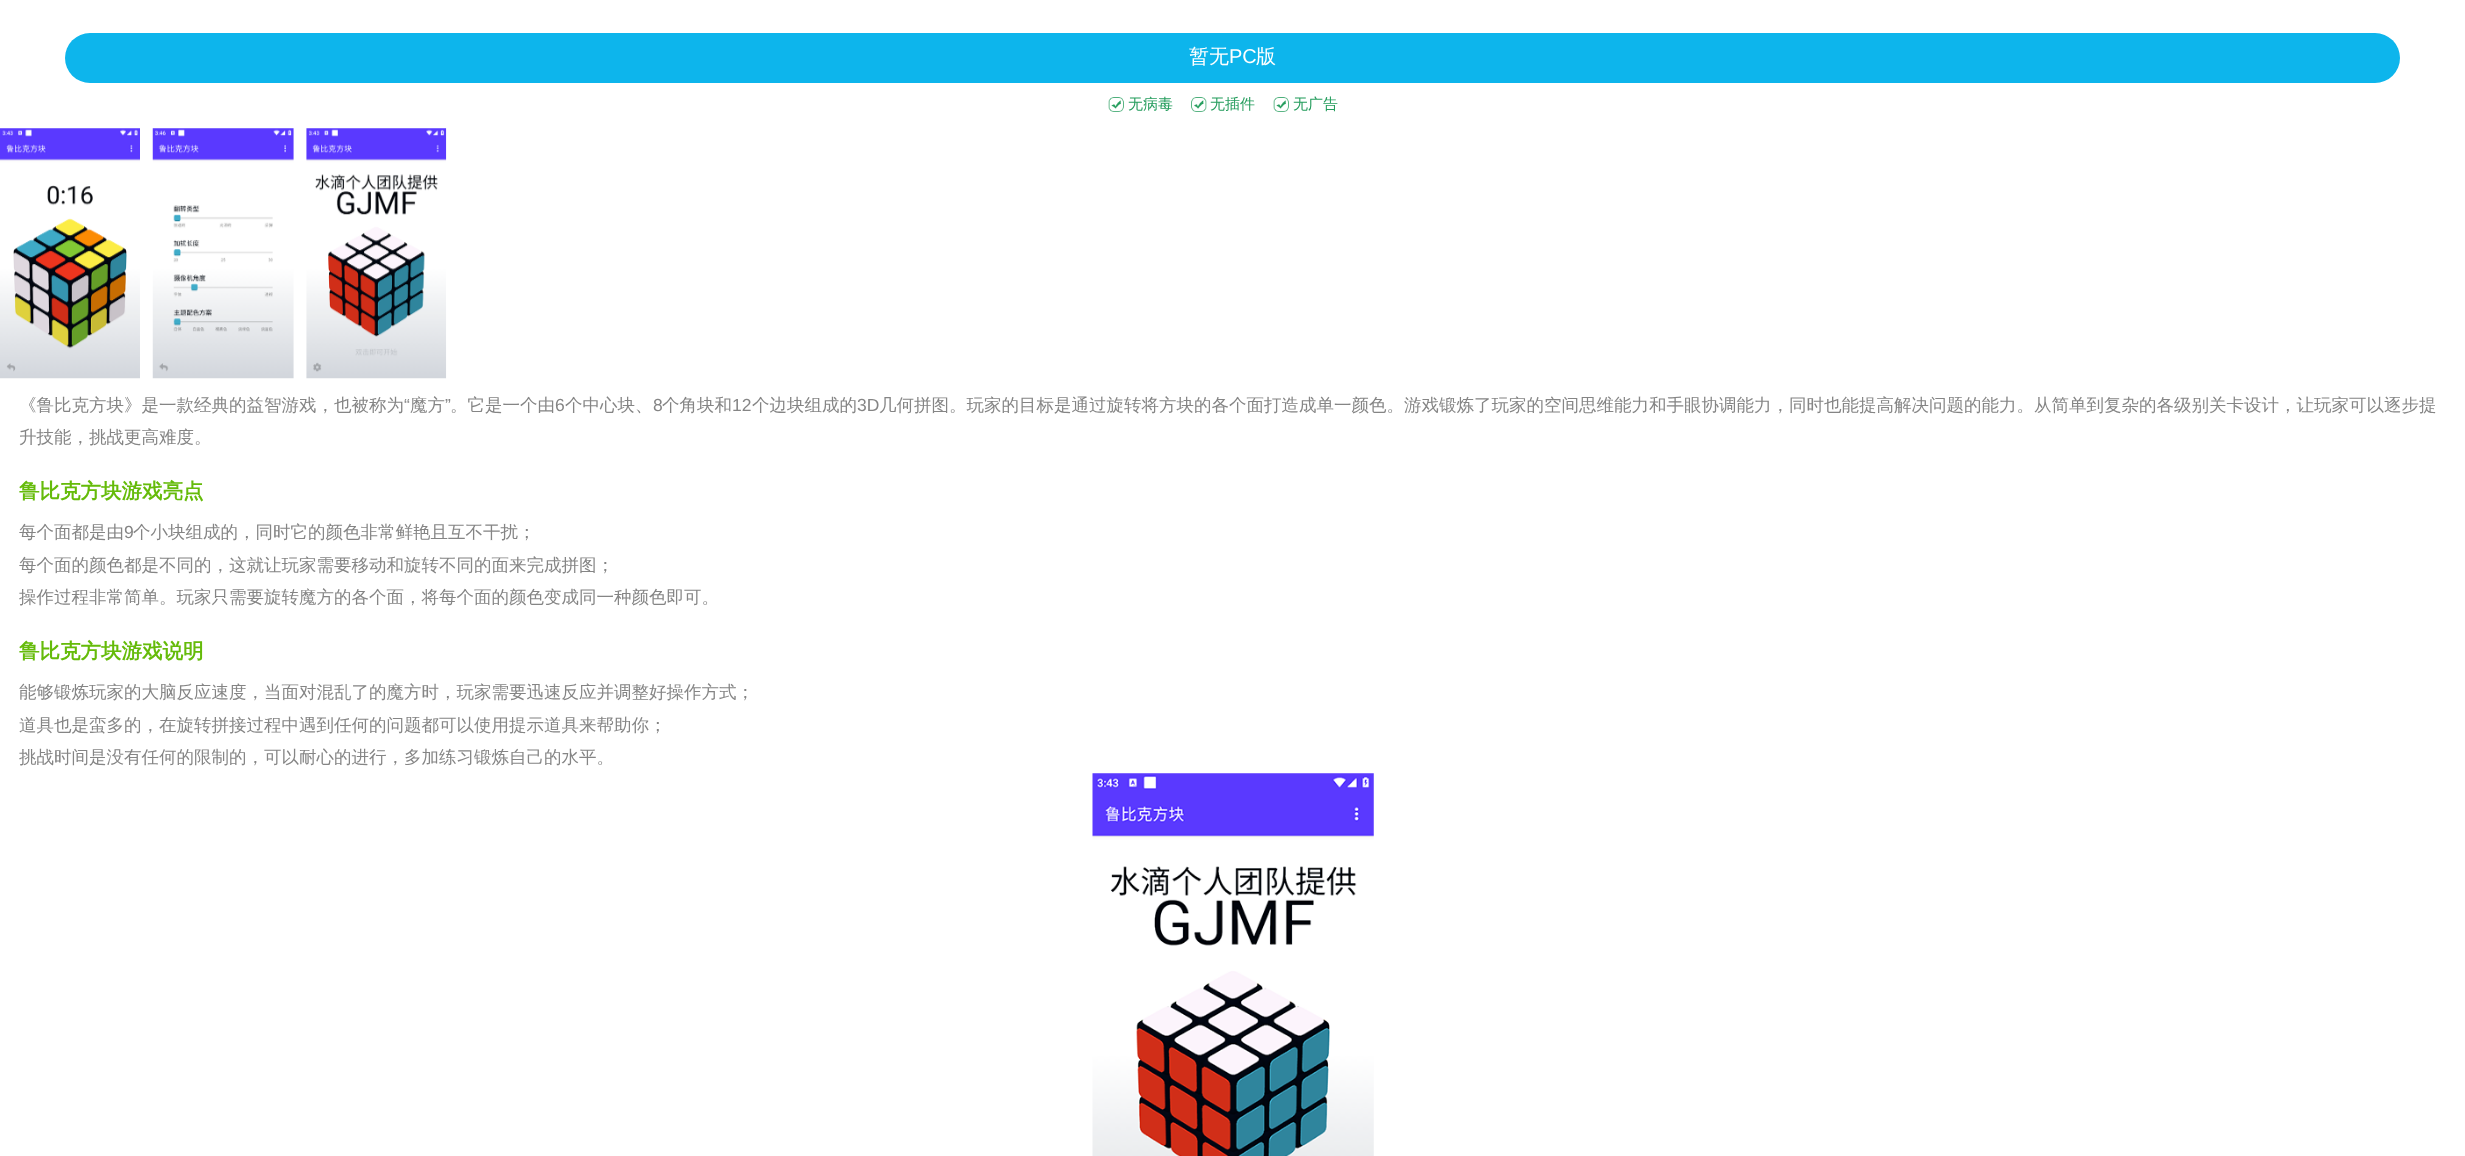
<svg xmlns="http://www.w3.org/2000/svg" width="2465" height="1156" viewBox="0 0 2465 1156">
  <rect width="100%" height="100%" fill="rgb(255,255,255)"/>
  <rect x="65" y="33" width="2335" height="50" rx="25" fill="rgb(13,181,236)"/>
  <text x="1189" y="63" font-family="WenQuanYi Zen Hei" font-size="20" font-weight="500" fill="rgb(255,255,255)">暂无</text>
  <text x="1229" y="63" font-family="Liberation Sans" font-size="20" fill="rgb(255,255,255)">PC</text>
  <text x="1256" y="63" font-family="WenQuanYi Zen Hei" font-size="20" font-weight="500" fill="rgb(255,255,255)">版</text>
  <image x="1108" y="97" width="16" height="15" href="pic1.png"/>
  <text x="1128" y="109" font-family="WenQuanYi Zen Hei" font-size="15" font-weight="500" fill="rgb(37,157,93)">无病毒</text>
  <image x="1191" y="97" width="16" height="15" href="pic2.png"/>
  <text x="1210" y="109" font-family="WenQuanYi Zen Hei" font-size="15" font-weight="500" fill="rgb(37,157,93)">无插件</text>
  <image x="1273" y="97" width="16" height="15" href="pic3.png"/>
  <text x="1293" y="109" font-family="WenQuanYi Zen Hei" font-size="15" font-weight="500" fill="rgb(37,157,93)">无广告</text>
  <image x="0" y="128" width="140" height="251" href="pic4.png"/>
  <image x="152" y="128" width="142" height="251" href="pic5.png"/>
  <image x="306" y="128" width="141" height="251" href="pic6.png"/>
  <text x="19" y="411" font-family="WenQuanYi Zen Hei" font-size="17.5" font-weight="500" fill="rgb(133,133,133)">《鲁比克方块》是一款经典的益智游戏，也被称为</text>
  <text x="404" y="411" font-family="Liberation Sans" font-size="17.5" fill="rgb(133,133,133)">“</text>
  <text x="410" y="411" font-family="WenQuanYi Zen Hei" font-size="17.5" font-weight="500" fill="rgb(133,133,133)">魔方</text>
  <text x="445" y="411" font-family="Liberation Sans" font-size="17.5" fill="rgb(133,133,133)">”</text>
  <text x="450" y="411" font-family="WenQuanYi Zen Hei" font-size="17.5" font-weight="500" fill="rgb(133,133,133)">。它是一个由</text>
  <text x="555" y="411" font-family="Liberation Sans" font-size="17.5" fill="rgb(133,133,133)">6</text>
  <text x="565" y="411" font-family="WenQuanYi Zen Hei" font-size="17.5" font-weight="500" fill="rgb(133,133,133)">个中心块、</text>
  <text x="653" y="411" font-family="Liberation Sans" font-size="17.5" fill="rgb(133,133,133)">8</text>
  <text x="662" y="411" font-family="WenQuanYi Zen Hei" font-size="17.5" font-weight="500" fill="rgb(133,133,133)">个角块和</text>
  <text x="732" y="411" font-family="Liberation Sans" font-size="17.5" fill="rgb(133,133,133)">12</text>
  <text x="752" y="411" font-family="WenQuanYi Zen Hei" font-size="17.5" font-weight="500" fill="rgb(133,133,133)">个边块组成的</text>
  <text x="857" y="411" font-family="Liberation Sans" font-size="17.5" fill="rgb(133,133,133)">3D</text>
  <g font-family="WenQuanYi Zen Hei" font-size="17.5" font-weight="500" fill="rgb(133,133,133)">
    <text x="879" y="411">几何拼图。玩家的目标是通过旋转将方块的各个面打造成单一颜色。游戏锻炼了玩家的空间思维能力和手眼协调能力，同时也能提高解决问题的能力。从简单到复杂的各级别关卡设计，让玩家可以逐步提</text>
    <text x="19" y="443">升技能，挑战更高难度。</text>
  </g>
  <text x="19" y="498" font-family="WenQuanYi Zen Hei" font-size="20.5" font-weight="bold" fill="rgb(101,187,10)">鲁比克方块游戏亮点</text>
  <text x="19" y="538" font-family="WenQuanYi Zen Hei" font-size="17.5" font-weight="500" fill="rgb(133,133,133)">每个面都是由</text>
  <text x="124" y="538" font-family="Liberation Sans" font-size="17.5" fill="rgb(133,133,133)">9</text>
  <g font-family="WenQuanYi Zen Hei" font-size="17.5" font-weight="500" fill="rgb(133,133,133)">
    <text x="133" y="538">个小块组成的，同时它的颜色非常鲜艳且互不干扰；</text>
    <text>
      <tspan x="19" y="571">每个面的颜色都是不同的，这就让玩家需要移动和旋转不同的面来完成拼图；</tspan>
      <tspan x="19" y="603">操作过程非常简单。玩家只需要旋转魔方的各个面，将每个面的颜色变成同一种颜色即可。</tspan>
    </text>
  </g>
  <text x="19" y="658" font-family="WenQuanYi Zen Hei" font-size="20.5" font-weight="bold" fill="rgb(101,187,10)">鲁比克方块游戏说明</text>
  <g font-family="WenQuanYi Zen Hei" font-size="17.5" font-weight="500" fill="rgb(133,133,133)">
    <text>
      <tspan x="19" y="698">能够锻炼玩家的大脑反应速度，当面对混乱了的魔方时，玩家需要迅速反应并调整好操作方式；</tspan>
      <tspan x="19" y="731">道具也是蛮多的，在旋转拼接过程中遇到任何的问题都可以使用提示道具来帮助你；</tspan>
      <tspan x="19" y="763">挑战时间是没有任何的限制的，可以耐心的进行，多加练习锻炼自己的水平。</tspan>
    </text>
  </g>
  <image x="1092" y="773" width="282" height="383" href="pic7.png"/>
</svg>
